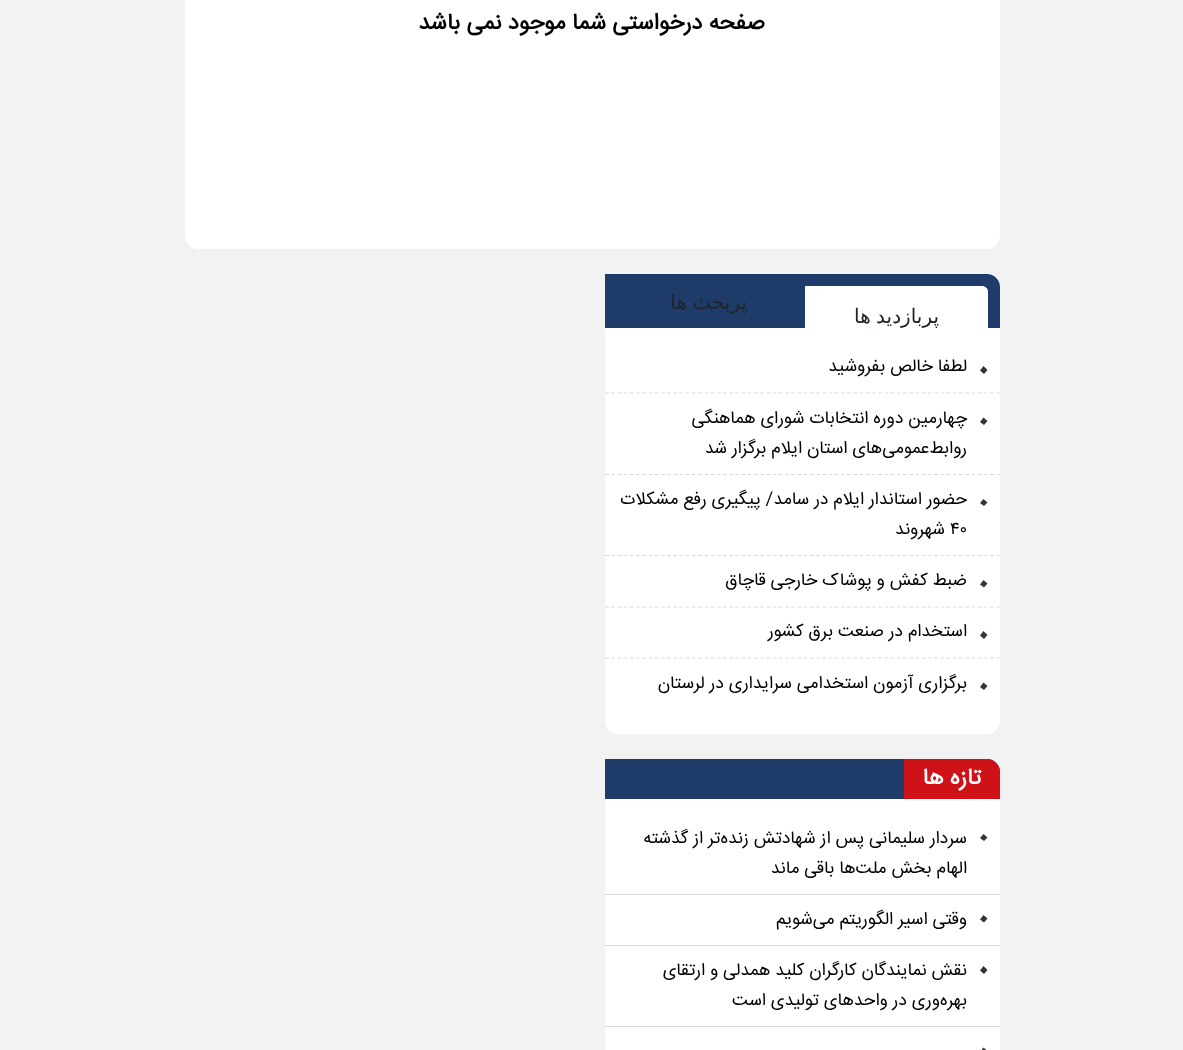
<svg xmlns="http://www.w3.org/2000/svg" width="1183" height="1050" viewBox="0 0 1183 1050">
  <rect width="100%" height="100%" fill="rgb(242,242,242)"/>
  <rect x="185" y="-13" width="815" height="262" rx="13" fill="rgb(255,255,255)"/>
  <text x="765" y="29" font-family="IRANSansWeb" font-size="22.5" font-weight="bold" direction="rtl" fill="rgb(0,0,0)">صفحه درخواستی شما موجود نمی باشد</text>
  <path d="M605 274H987C994 274 1000 280 1000 287V330H605Z" fill="rgb(30,59,105)"/>
  <text x="747" y="309" word-spacing="-1" font-family="DejaVu Sans" font-size="20" direction="rtl" fill="rgb(33,37,41)">پربحث ها</text>
  <path d="M605 328H1000V721C1000 728 994 734 987 734H618C611 734 605 728 605 721Z" fill="rgb(255,255,255)"/>
  <path d="M805 286H982C985.5 286 988 288.5 988 292V330H805Z" fill="rgb(255,255,255)"/>
  <text x="939" y="323" word-spacing="-1" font-family="DejaVu Sans" font-size="20" direction="rtl" fill="rgb(33,37,41)">پربازدید ها</text>
  <path d="M605 393H1000" fill="none" stroke="rgb(217,217,217)" stroke-width="1.2" stroke-dasharray="3.75 2.46"/>
  <path d="M987.5 370L983.5 366L980 370.5L984 374ZM987.5 421L983.5 417.5L980 422L984 425Z" fill="rgb(53,53,53)" fill-rule="evenodd"/>
  <text x="967" y="371" font-family="IRANSansWeb" font-size="17.5" direction="rtl" fill="rgb(0,0,0)">لطفا خالص بفروشید</text>
  <path d="M605 474.5H1000" fill="none" stroke="rgb(217,217,217)" stroke-width="1.2" stroke-dasharray="3.75 2.46"/>
  <g font-family="IRANSansWeb" font-size="17.5" direction="rtl" fill="rgb(0,0,0)">
    <text>
      <tspan x="967" y="423">چهارمین دوره انتخابات شورای هماهنگی</tspan>
      <tspan x="967" y="453">روابط‌عمومی‌های استان ایلام برگزار شد</tspan>
    </text>
  </g>
  <path d="M605 555.5H1000" fill="none" stroke="rgb(217,217,217)" stroke-width="1.2" stroke-dasharray="3.75 2.46"/>
  <path d="M987.5 502.5L983.5 499L980 503L984 506Z" fill="rgb(53,53,53)" fill-rule="evenodd"/>
  <text x="967" y="504" font-family="IRANSansWeb" font-size="17.5" direction="rtl" fill="rgb(0,0,0)">حضور استاندار ایلام در سامد/ پیگیری رفع مشکلات</text>
  <text x="950" y="534" font-family="IRANSansWeb" font-size="17.5" fill="rgb(0,0,0)">۴۰</text>
  <text x="945" y="534" font-family="IRANSansWeb" font-size="17.5" direction="rtl" fill="rgb(0,0,0)">شهروند</text>
  <path d="M605 607H1000" fill="none" stroke="rgb(217,217,217)" stroke-width="1.2" stroke-dasharray="3.75 2.46"/>
  <path d="M987.5 583.5L983.5 580L980 584.5L984 587.5ZM987.5 635L983.5 631L980 635.5L984 639Z" fill="rgb(53,53,53)" fill-rule="evenodd"/>
  <text x="967" y="585" font-family="IRANSansWeb" font-size="17.5" direction="rtl" fill="rgb(0,0,0)">ضبط کفش و پوشاک خارجی قاچاق</text>
  <path d="M605 658H1000" fill="none" stroke="rgb(217,217,217)" stroke-width="1.2" stroke-dasharray="3.75 2.46"/>
  <text x="967" y="636" font-family="IRANSansWeb" font-size="17.5" direction="rtl" fill="rgb(0,0,0)">استخدام در صنعت برق کشور</text>
  <path d="M987.5 686L983.5 682.5L980 687L984 690Z" fill="rgb(53,53,53)" fill-rule="evenodd"/>
  <text x="967" y="688" font-family="IRANSansWeb" font-size="17.5" direction="rtl" fill="rgb(0,0,0)">برگزاری آزمون استخدامی سرایداری در لرستان</text>
  <path d="M605 759H987C994 759 1000 765 1000 772V1050C1000 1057 994 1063 987 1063H618C611 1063 605 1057 605 1050Z" fill="rgb(255,255,255)"/>
  <path d="M605 759H987C994 759 1000 765 1000 772V799H605Z" fill="rgb(30,59,105)"/>
  <path d="M904 759H987C994 759 1000 765 1000 772V799H904Z" fill="rgb(207,17,24)"/>
  <text x="981" y="784" font-family="IRANSansWeb" font-size="22.5" font-weight="bold" direction="rtl" fill="rgb(255,255,255)">تازه ها</text>
  <rect x="605" y="894" width="395" height="1" fill="rgb(217,217,217)"/>
  <path d="M987.5 837.5L983.5 834L980 838L984 841Z" fill="rgb(53,53,53)" fill-rule="evenodd"/>
  <g font-family="IRANSansWeb" font-size="17.5" direction="rtl" fill="rgb(0,0,0)">
    <text>
      <tspan x="967" y="843">سردار سلیمانی پس از شهادتش زنده‌تر از گذشته</tspan>
      <tspan x="967" y="873">الهام بخش ملت‌ها باقی ماند</tspan>
    </text>
  </g>
  <rect x="605" y="945" width="395" height="1" fill="rgb(217,217,217)"/>
  <path d="M987.5 918.5L983.5 915L980 919.5L984 922.5ZM987.5 970L983.5 966L980 970.5L984 974Z" fill="rgb(53,53,53)" fill-rule="evenodd"/>
  <text x="967" y="924" font-family="IRANSansWeb" font-size="17.5" direction="rtl" fill="rgb(0,0,0)">وقتی اسیر الگوریتم می‌شویم</text>
  <rect x="605" y="1026" width="395" height="1" fill="rgb(217,217,217)"/>
  <g font-family="IRANSansWeb" font-size="17.5" direction="rtl" fill="rgb(0,0,0)">
    <text>
      <tspan x="967" y="975">نقش نمایندگان کارگران کلید همدلی و ارتقای</tspan>
      <tspan x="967" y="1005">بهره‌وری در واحدهای تولیدی است</tspan>
    </text>
  </g>
  <path d="M987.5 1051L983.5 1047.5L980 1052L984 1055Z" fill="rgb(53,53,53)" fill-rule="evenodd"/>
</svg>
